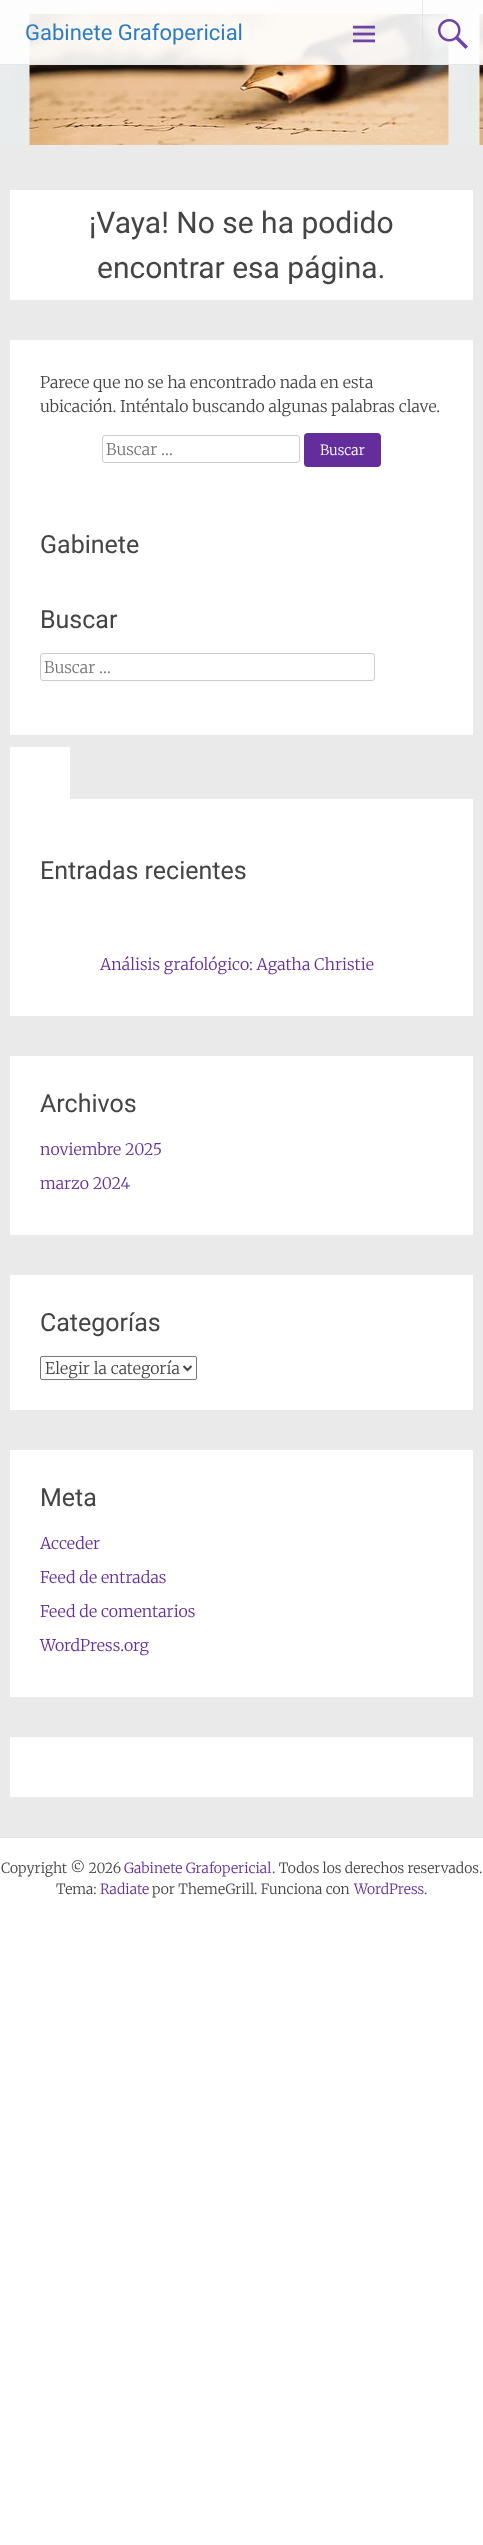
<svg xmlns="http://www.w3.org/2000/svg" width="483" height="2545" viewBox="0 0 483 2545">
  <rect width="100%" height="100%" fill="rgb(255,255,255)"/>
  <image x="0" y="0" width="483" height="145" href="pic1.png"/>
  <rect x="0" y="0" width="483" height="65" fill="rgba(255,255,255,0.9)"/>
  <rect x="0" y="64" width="483" height="1" fill="rgba(225,228,230,0.9)"/>
  <text x="25" y="40" font-family="Roboto" font-size="22" fill="rgb(42,124,196)">Gabinete Grafopericial</text>
  <image x="353" y="25" width="22" height="18" href="pic2.png"/>
  <rect x="422" y="0" width="1" height="64" fill="rgba(225,228,230,0.9)"/>
  <image x="438" y="19" width="30" height="30" href="pic3.png"/>
  <rect x="0" y="145" width="483" height="1692" fill="rgb(234,234,234)"/>
  <rect x="10" y="190" width="463" height="110" fill="rgb(255,255,255)"/>
  <g font-family="Roboto" font-size="30" fill="rgb(68,68,68)">
    <text x="89" y="233">¡Vaya! No se ha podido</text>
    <text x="97" y="278">encontrar esa página.</text>
  </g>
  <rect x="10" y="340" width="463" height="395" fill="rgb(255,255,255)"/>
  <g font-family="Merriweather" font-size="16" font-weight="300" fill="rgb(68,68,68)">
    <text>
      <tspan x="40" y="388">Parece que no se ha encontrado nada en esta</tspan>
      <tspan x="40" y="412">ubicación. Inténtalo buscando algunas palabras clave.</tspan>
    </text>
  </g>
  <rect x="102.5" y="435.5" width="197" height="27" rx="2.5" fill="none" stroke="rgb(204,204,204)"/>
  <text x="106" y="455" font-family="Merriweather" font-size="16" font-weight="300" fill="rgb(117,117,117)">Buscar …</text>
  <rect x="304" y="433" width="77" height="34" rx="4" fill="rgb(99,46,155)"/>
  <text x="320" y="455" font-family="Merriweather" font-size="14" font-weight="300" fill="rgb(255,255,255)">Buscar</text>
  <g font-family="Roboto" font-size="25" fill="rgb(68,68,68)">
    <text x="40" y="553">Gabinete</text>
    <text x="40" y="628">Buscar</text>
  </g>
  <rect x="40.5" y="653.5" width="334" height="27" rx="2.5" fill="none" stroke="rgb(204,204,204)"/>
  <text x="44" y="673" font-family="Merriweather" font-size="16" font-weight="300" fill="rgb(117,117,117)">Buscar …</text>
  <rect x="10" y="747" width="60" height="52" fill="rgb(255,255,255)"/>
  <rect x="10" y="799" width="463" height="217" fill="rgb(255,255,255)"/>
  <text x="40" y="879" font-family="Roboto" font-size="25" fill="rgb(68,68,68)">Entradas recientes</text>
  <text x="100" y="970" font-family="Merriweather" font-size="16" font-weight="300" fill="rgb(99,46,155)">Análisis grafológico: Agatha Christie</text>
  <rect x="10" y="1056" width="463" height="179" fill="rgb(255,255,255)"/>
  <text x="40" y="1112" font-family="Roboto" font-size="25" fill="rgb(68,68,68)">Archivos</text>
  <g font-family="Merriweather" font-size="16" font-weight="300" fill="rgb(99,46,155)">
    <text x="40" y="1155">noviembre 2025</text>
    <text x="40" y="1189">marzo 2024</text>
  </g>
  <rect x="10" y="1275" width="463" height="135" fill="rgb(255,255,255)"/>
  <text x="40" y="1331" font-family="Roboto" font-size="25" fill="rgb(68,68,68)">Categorías</text>
  <rect x="40.5" y="1356.5" width="156" height="23" rx="1.5" fill="none" stroke="rgb(118,118,118)"/>
  <path d="M183.5 1366L187.5 1370L191.5 1366" fill="none" stroke="rgb(68,68,68)" stroke-width="2"/>
  <text x="45" y="1374" font-family="Merriweather" font-size="16" font-weight="300" fill="rgb(68,68,68)">Elegir la categoría</text>
  <rect x="10" y="1450" width="463" height="247" fill="rgb(255,255,255)"/>
  <text x="40" y="1506" font-family="Roboto" font-size="25" fill="rgb(68,68,68)">Meta</text>
  <g font-family="Merriweather" font-size="16" font-weight="300" fill="rgb(99,46,155)">
    <text x="40" y="1549">Acceder</text>
    <text x="40" y="1583">Feed de entradas</text>
    <text x="40" y="1617">Feed de comentarios</text>
    <text x="40" y="1651">WordPress.org</text>
  </g>
  <rect x="10" y="1737" width="463" height="60" fill="rgb(255,255,255)"/>
  <rect x="0" y="1837" width="483" height="1" fill="rgb(225,228,230)"/>
  <text x="1" y="1873" font-family="Merriweather" font-size="14" font-weight="300" fill="rgb(68,68,68)">Copyright © 2026</text>
  <text x="124" y="1873" font-family="Merriweather" font-size="14" font-weight="300" fill="rgb(99,46,155)">Gabinete Grafopericial</text>
  <g font-family="Merriweather" font-size="14" font-weight="300" fill="rgb(68,68,68)">
    <text x="272" y="1873">. Todos los derechos reservados.</text>
    <text x="56" y="1894">Tema:</text>
  </g>
  <text x="100" y="1894" font-family="Merriweather" font-size="14" font-weight="300" fill="rgb(99,46,155)">Radiate</text>
  <text x="152" y="1894" font-family="Merriweather" font-size="14" font-weight="300" fill="rgb(68,68,68)">por ThemeGrill. Funciona con</text>
  <text x="354" y="1894" font-family="Merriweather" font-size="14" font-weight="300" fill="rgb(99,46,155)">WordPress</text>
  <text x="424" y="1894" font-family="Merriweather" font-size="14" font-weight="300" fill="rgb(68,68,68)">.</text>
</svg>
